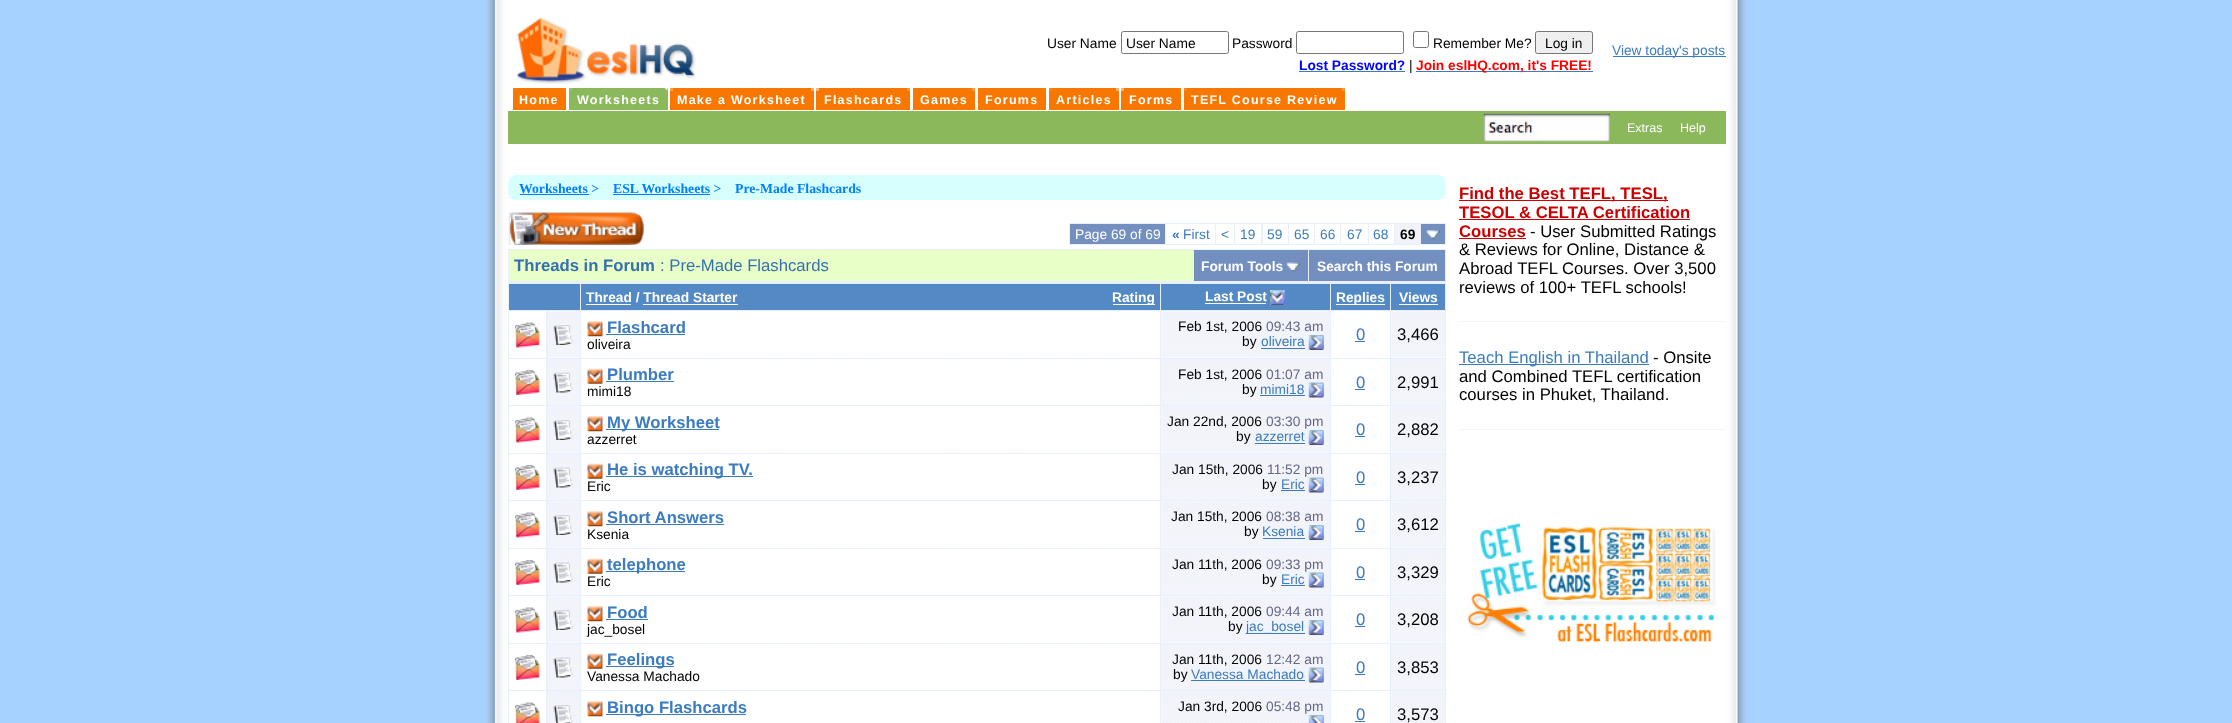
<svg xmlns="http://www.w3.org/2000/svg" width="2232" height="723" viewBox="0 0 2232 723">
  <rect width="100%" height="100%" fill="rgb(165,210,255)"/>
  <image x="485" y="0" width="1263" height="723" href="pic1.png"/>
  <image x="517" y="17" width="179" height="67" href="pic2.png"/>
  <text x="1047" y="48" font-family="Liberation Sans" font-size="13.75" fill="rgb(0,0,0)">User Name</text>
  <rect x="1121.5" y="31.5" width="107" height="22" rx="2" fill="none" stroke="rgb(118,118,118)"/>
  <g font-family="Liberation Sans" font-size="13.75" fill="rgb(0,0,0)">
    <text x="1126" y="48">User Name</text>
    <text x="1232" y="48">Password</text>
  </g>
  <rect x="1296.5" y="31.5" width="107" height="22" rx="2" fill="none" stroke="rgb(118,118,118)"/>
  <rect x="1413.5" y="31.5" width="15" height="16" rx="2" fill="none" stroke="rgb(118,118,118)"/>
  <text x="1433" y="48" font-family="Liberation Sans" font-size="13.75" fill="rgb(0,0,0)">Remember Me?</text>
  <rect x="1535.5" y="31.5" width="57" height="22" rx="2" fill="rgb(239,239,239)" stroke="rgb(118,118,118)"/>
  <text x="1545" y="48" font-family="Liberation Sans" font-size="13.75" fill="rgb(0,0,0)">Log in</text>
  <text x="1299" y="70" font-family="Liberation Sans" font-size="13.75" font-weight="bold" fill="rgb(0,0,255)">Lost Password?</text>
  <rect x="1299" y="71" width="106" height="1" fill="rgb(59,123,191)"/>
  <text x="1409" y="70" font-family="Liberation Sans" font-size="13.75" fill="rgb(0,0,0)">|</text>
  <rect x="1416" y="71" width="177" height="1" fill="rgb(59,123,191)"/>
  <text x="1416" y="70" font-family="Liberation Sans" font-size="13.75" font-weight="bold" fill="rgb(255,0,0)">Join eslHQ.com, it's FREE!</text>
  <rect x="1613" y="56" width="113" height="1" fill="rgb(59,123,191)"/>
  <text x="1612" y="55" font-family="Liberation Sans" font-size="13.75" fill="rgb(59,123,191)">View today's posts</text>
  <rect x="513" y="88" width="53" height="22" fill="rgb(248,119,0)"/>
  <rect x="513" y="88" width="3" height="3" fill="rgb(248,126,13)"/>
  <rect x="563" y="88" width="3" height="3" fill="rgb(248,126,13)"/>
  <text x="519" y="104" font-family="Liberation Sans" font-size="12.5" font-weight="bold" letter-spacing="1.25" fill="rgb(255,255,255)">Home</text>
  <rect x="569" y="88" width="99" height="22" fill="rgb(140,184,92)"/>
  <rect x="569" y="88" width="3" height="3" fill="rgb(153,192,110)"/>
  <image x="664" y="88" width="4" height="3" href="pic3.png"/>
  <text x="577" y="104" font-family="Liberation Sans" font-size="12.5" font-weight="bold" letter-spacing="1.25" fill="rgb(255,255,255)">Worksheets</text>
  <rect x="670" y="88" width="144" height="22" fill="rgb(248,119,0)"/>
  <rect x="670" y="88" width="3" height="3" fill="rgb(250,158,74)"/>
  <rect x="811" y="88" width="3" height="3" fill="rgb(251,175,105)"/>
  <text x="677" y="104" font-family="Liberation Sans" font-size="12.5" font-weight="bold" letter-spacing="1.25" fill="rgb(255,255,255)">Make a Worksheet</text>
  <rect x="816" y="88" width="94" height="22" fill="rgb(248,119,0)"/>
  <rect x="816" y="88" width="3" height="3" fill="rgb(251,183,120)"/>
  <rect x="907" y="88" width="3" height="3" fill="rgb(250,150,59)"/>
  <text x="824" y="104" font-family="Liberation Sans" font-size="12.5" font-weight="bold" letter-spacing="1.25" fill="rgb(255,255,255)">Flashcards</text>
  <rect x="913" y="88" width="62" height="22" fill="rgb(248,119,0)"/>
  <rect x="972" y="88" width="3" height="3" fill="rgb(250,150,59)"/>
  <text x="920" y="104" font-family="Liberation Sans" font-size="12.5" font-weight="bold" letter-spacing="1.25" fill="rgb(255,255,255)">Games</text>
  <rect x="978" y="88" width="68" height="22" fill="rgb(248,119,0)"/>
  <rect x="1043" y="88" width="3" height="3" fill="rgb(248,126,13)"/>
  <text x="985" y="104" font-family="Liberation Sans" font-size="12.5" font-weight="bold" letter-spacing="1.25" fill="rgb(255,255,255)">Forums</text>
  <rect x="1049" y="88" width="70" height="22" fill="rgb(248,119,0)"/>
  <rect x="1049" y="88" width="3" height="3" fill="rgb(249,134,28)"/>
  <rect x="1116" y="88" width="3" height="3" fill="rgb(251,175,105)"/>
  <text x="1056" y="104" font-family="Liberation Sans" font-size="12.5" font-weight="bold" letter-spacing="1.25" fill="rgb(255,255,255)">Articles</text>
  <rect x="1121" y="88" width="60" height="22" fill="rgb(248,119,0)"/>
  <rect x="1121" y="88" width="3" height="3" fill="rgb(251,183,120)"/>
  <rect x="1178" y="88" width="3" height="3" fill="rgb(248,126,13)"/>
  <text x="1129" y="104" font-family="Liberation Sans" font-size="12.5" font-weight="bold" letter-spacing="1.25" fill="rgb(255,255,255)">Forms</text>
  <rect x="1184" y="88" width="161" height="22" fill="rgb(248,119,0)"/>
  <rect x="1184" y="88" width="3" height="3" fill="rgb(249,134,28)"/>
  <rect x="1342" y="88" width="3" height="3" fill="rgb(250,150,59)"/>
  <text x="1191" y="104" font-family="Liberation Sans" font-size="12.5" font-weight="bold" letter-spacing="1.25" fill="rgb(255,255,255)">TEFL Course Review</text>
  <rect x="508" y="111" width="1218" height="33" fill="rgb(140,184,92)"/>
  <image x="1483" y="113" width="127" height="29" href="pic4.png"/>
  <g font-family="Liberation Sans" font-size="12.5" fill="rgb(255,255,255)">
    <text x="1627" y="132">Extras</text>
    <text x="1680" y="132">Help</text>
  </g>
  <rect x="508" y="175" width="938" height="25" fill="rgb(215,255,253)"/>
  <rect x="1440" y="175" width="6" height="1" fill="rgb(255,255,255)"/>
  <rect x="508" y="175" width="6" height="1" fill="rgb(255,255,255)"/>
  <rect x="1443" y="176" width="4" height="1" fill="rgb(255,255,255)"/>
  <rect x="508" y="176" width="4" height="1" fill="rgb(255,255,255)"/>
  <rect x="1444" y="178" width="3" height="1" fill="rgb(255,255,255)"/>
  <rect x="508" y="178" width="3" height="1" fill="rgb(255,255,255)"/>
  <rect x="1445" y="179" width="1" height="3" fill="rgb(255,255,255)"/>
  <rect x="508" y="179" width="1" height="3" fill="rgb(255,255,255)"/>
  <text x="519" y="193" font-family="Liberation Serif" font-size="13.75" font-weight="bold" fill="rgb(0,128,255)">Worksheets &gt;</text>
  <rect x="520" y="194" width="69" height="1" fill="rgb(0,128,255)"/>
  <text x="613" y="193" font-family="Liberation Serif" font-size="13.75" font-weight="bold" fill="rgb(0,128,255)">ESL Worksheets &gt;</text>
  <rect x="613" y="194" width="97" height="1" fill="rgb(0,128,255)"/>
  <text x="735" y="193" font-family="Liberation Serif" font-size="13.75" font-weight="bold" fill="rgb(0,128,255)">Pre-Made Flashcards</text>
  <rect x="1445" y="194" width="1" height="3" fill="rgb(255,255,255)"/>
  <rect x="508" y="194" width="1" height="3" fill="rgb(255,255,255)"/>
  <rect x="1444" y="196" width="3" height="1" fill="rgb(255,255,255)"/>
  <rect x="508" y="196" width="3" height="1" fill="rgb(255,255,255)"/>
  <rect x="1443" y="198" width="4" height="1" fill="rgb(255,255,255)"/>
  <rect x="508" y="198" width="4" height="1" fill="rgb(255,255,255)"/>
  <rect x="1440" y="199" width="6" height="1" fill="rgb(255,255,255)"/>
  <rect x="508" y="199" width="6" height="1" fill="rgb(255,255,255)"/>
  <image x="508" y="212" width="136" height="33" href="pic5.png"/>
  <rect x="1069" y="223" width="377" height="22" fill="rgb(232,239,255)"/>
  <rect x="1070" y="224" width="95" height="20" fill="rgb(115,143,191)"/>
  <text x="1075" y="239" font-family="Liberation Sans" font-size="13.75" fill="rgb(255,255,255)">Page 69 of 69</text>
  <rect x="1166" y="224" width="49" height="20" fill="rgb(255,255,255)"/>
  <image x="1174" y="223" width="31" height="1" href="pic6.png"/>
  <text x="1172" y="239" font-family="Liberation Sans" font-size="13.75" font-weight="bold" fill="rgb(59,123,191)">«</text>
  <text x="1183" y="239" font-family="Liberation Sans" font-size="13.75" fill="rgb(59,123,191)">First</text>
  <rect x="1216" y="224" width="18" height="20" fill="rgb(255,255,255)"/>
  <rect x="1224" y="223" width="1" height="1" fill="rgb(236,242,255)"/>
  <text x="1221" y="239" font-family="Liberation Sans" font-size="13.75" fill="rgb(59,123,191)">&lt;</text>
  <rect x="1235" y="224" width="26" height="20" fill="rgb(255,255,255)"/>
  <image x="1239" y="223" width="16" height="1" href="pic7.png"/>
  <text x="1240" y="239" font-family="Liberation Sans" font-size="13.75" fill="rgb(59,123,191)">19</text>
  <rect x="1263" y="224" width="25" height="20" fill="rgb(255,255,255)"/>
  <image x="1262" y="223" width="13" height="20" href="pic8.png"/>
  <text x="1267" y="239" font-family="Liberation Sans" font-size="13.75" fill="rgb(59,123,191)">59</text>
  <rect x="1289" y="224" width="25" height="20" fill="rgb(255,255,255)"/>
  <image x="1288" y="223" width="17" height="17" href="pic9.png"/>
  <text x="1294" y="239" font-family="Liberation Sans" font-size="13.75" fill="rgb(59,123,191)">65</text>
  <rect x="1315" y="224" width="25" height="20" fill="rgb(255,255,255)"/>
  <image x="1319" y="223" width="16" height="1" href="pic7.png"/>
  <text x="1320" y="239" font-family="Liberation Sans" font-size="13.75" fill="rgb(59,123,191)">66</text>
  <rect x="1341" y="224" width="27" height="20" fill="rgb(255,255,255)"/>
  <image x="1349" y="223" width="16" height="1" href="pic7.png"/>
  <text x="1347" y="239" font-family="Liberation Sans" font-size="13.75" fill="rgb(59,123,191)">67</text>
  <rect x="1369" y="224" width="25" height="20" fill="rgb(255,255,255)"/>
  <image x="1368" y="223" width="17" height="17" href="pic9.png"/>
  <text x="1373" y="239" font-family="Liberation Sans" font-size="13.75" fill="rgb(59,123,191)">68</text>
  <image x="1395" y="224" width="25" height="20" href="pic10.png"/>
  <text x="1400" y="239" font-family="Liberation Sans" font-size="13.75" font-weight="bold" fill="rgb(0,0,0)">69</text>
  <rect x="1421" y="224" width="24" height="20" fill="rgb(115,143,191)"/>
  <image x="1426" y="230" width="14" height="9" href="pic11.png"/>
  <rect x="508" y="249" width="938" height="474" fill="rgb(232,239,255)"/>
  <rect x="509" y="250" width="684" height="31" fill="rgb(232,255,199)"/>
  <text x="514" y="271" font-family="Liberation Sans" font-size="16.7" font-weight="bold" fill="rgb(54,112,175)">Threads in Forum</text>
  <text x="660" y="271" font-family="Liberation Sans" font-size="16.7" fill="rgb(54,112,175)">: Pre-Made Flashcards</text>
  <rect x="1194" y="250" width="114" height="31" fill="rgb(115,143,191)"/>
  <text x="1201" y="271" font-family="Liberation Sans" font-size="13.75" font-weight="bold" fill="rgb(255,255,255)">Forum Tools</text>
  <image x="1286" y="262" width="14" height="10" href="pic12.png"/>
  <rect x="1309" y="250" width="136" height="31" fill="rgb(115,143,191)"/>
  <text x="1317" y="271" font-family="Liberation Sans" font-size="13.75" font-weight="bold" fill="rgb(255,255,255)">Search this Forum</text>
  <rect x="509" y="284" width="71" height="26" fill="rgb(83,137,197)"/>
  <rect x="581" y="284" width="579" height="26" fill="rgb(83,137,197)"/>
  <text x="586" y="302" font-family="Liberation Sans" font-size="13.75" font-weight="bold" fill="rgb(255,255,255)">Thread / Thread Starter</text>
  <rect x="586" y="304" width="45" height="1" fill="rgb(255,255,255)"/>
  <rect x="1113" y="304" width="42" height="1" fill="rgb(255,255,255)"/>
  <text x="1112" y="302" font-family="Liberation Sans" font-size="13.75" font-weight="bold" fill="rgb(255,255,255)">Rating</text>
  <rect x="643" y="304" width="95" height="1" fill="rgb(255,255,255)"/>
  <rect x="1161" y="284" width="169" height="26" fill="rgb(83,137,197)"/>
  <text x="1205" y="301" font-family="Liberation Sans" font-size="13.75" font-weight="bold" fill="rgb(255,255,255)">Last Post</text>
  <rect x="1205" y="303" width="61" height="1" fill="rgb(255,255,255)"/>
  <image x="1270" y="290" width="15" height="15" href="pic13.png"/>
  <rect x="1331" y="284" width="59" height="26" fill="rgb(83,137,197)"/>
  <rect x="1336" y="304" width="49" height="1" fill="rgb(255,255,255)"/>
  <text x="1336" y="302" font-family="Liberation Sans" font-size="13.75" font-weight="bold" fill="rgb(255,255,255)">Replies</text>
  <rect x="1391" y="284" width="54" height="26" fill="rgb(83,137,197)"/>
  <text x="1399" y="302" font-family="Liberation Sans" font-size="13.75" font-weight="bold" fill="rgb(255,255,255)">Views</text>
  <rect x="1399" y="304" width="39" height="1" fill="rgb(255,255,255)"/>
  <rect x="509" y="311" width="37" height="47" fill="rgb(255,255,255)"/>
  <image x="508" y="319" width="1" height="31" href="pic14.png"/>
  <image x="515" y="322" width="25" height="26" href="pic15.png"/>
  <rect x="548" y="311" width="32" height="47" fill="rgb(255,255,255)"/>
  <image x="547" y="311" width="33" height="47" href="pic16.png"/>
  <image x="553" y="325" width="20" height="20" href="pic17.png"/>
  <rect x="581" y="311" width="579" height="47" fill="rgb(255,255,255)"/>
  <image x="587" y="321" width="16" height="16" href="pic18.png"/>
  <text x="607" y="333" font-family="Liberation Sans" font-size="16.7" font-weight="bold" fill="rgb(59,123,191)">Flashcard</text>
  <rect x="606" y="334" width="79" height="1" fill="rgb(59,123,191)"/>
  <text x="587" y="349" font-family="Liberation Sans" font-size="13.75" fill="rgb(0,0,0)">oliveira</text>
  <rect x="1161" y="311" width="169" height="47" fill="rgb(255,255,255)"/>
  <image x="1161" y="311" width="169" height="47" href="pic19.png"/>
  <text x="1178" y="331" font-family="Liberation Sans" font-size="13.75" fill="rgb(0,0,0)">Feb 1st, 2006</text>
  <text x="1266" y="331" font-family="Liberation Sans" font-size="13.75" fill="rgb(102,102,134)">09:43 am</text>
  <text x="1242" y="346" font-family="Liberation Sans" font-size="13.75" fill="rgb(0,0,0)">by</text>
  <text x="1261" y="346" font-family="Liberation Sans" font-size="13.75" fill="rgb(59,123,191)">oliveira</text>
  <rect x="1261" y="348" width="44" height="1" fill="rgb(59,123,191)"/>
  <image x="1308" y="335" width="16" height="15" href="pic20.png"/>
  <rect x="1331" y="311" width="59" height="47" fill="rgb(255,255,255)"/>
  <text x="1356" y="340" font-family="Liberation Sans" font-size="16.7" fill="rgb(59,123,191)">0</text>
  <rect x="1355" y="341" width="10" height="1" fill="rgb(59,123,191)"/>
  <rect x="1391" y="311" width="54" height="47" fill="rgb(255,255,255)"/>
  <image x="1391" y="311" width="54" height="47" href="pic21.png"/>
  <text x="1397" y="340" font-family="Liberation Sans" font-size="16.7" fill="rgb(0,0,0)">3,466</text>
  <rect x="509" y="359" width="37" height="46" fill="rgb(255,255,255)"/>
  <image x="508" y="358" width="32" height="47" href="pic22.png"/>
  <image x="515" y="370" width="25" height="25" href="pic23.png"/>
  <image x="547" y="359" width="33" height="46" href="pic24.png"/>
  <image x="553" y="372" width="20" height="21" href="pic25.png"/>
  <rect x="581" y="359" width="579" height="46" fill="rgb(255,255,255)"/>
  <image x="589" y="358" width="571" height="1" href="pic26.png"/>
  <image x="587" y="368" width="16" height="16" href="pic27.png"/>
  <text x="607" y="380" font-family="Liberation Sans" font-size="16.7" font-weight="bold" fill="rgb(59,123,191)">Plumber</text>
  <rect x="606" y="381" width="68" height="1" fill="rgb(59,123,191)"/>
  <text x="587" y="396" font-family="Liberation Sans" font-size="13.75" fill="rgb(0,0,0)">mimi18</text>
  <image x="1161" y="359" width="169" height="46" href="pic28.png"/>
  <text x="1178" y="379" font-family="Liberation Sans" font-size="13.75" fill="rgb(0,0,0)">Feb 1st, 2006</text>
  <text x="1266" y="379" font-family="Liberation Sans" font-size="13.75" fill="rgb(102,102,134)">01:07 am</text>
  <text x="1242" y="394" font-family="Liberation Sans" font-size="13.75" fill="rgb(0,0,0)">by</text>
  <text x="1260" y="394" font-family="Liberation Sans" font-size="13.75" fill="rgb(59,123,191)">mimi18</text>
  <rect x="1260" y="395" width="45" height="1" fill="rgb(59,123,191)"/>
  <image x="1308" y="382" width="16" height="16" href="pic29.png"/>
  <rect x="1331" y="359" width="59" height="46" fill="rgb(255,255,255)"/>
  <image x="1339" y="358" width="46" height="1" href="pic30.png"/>
  <text x="1356" y="388" font-family="Liberation Sans" font-size="16.7" fill="rgb(59,123,191)">0</text>
  <rect x="1355" y="389" width="10" height="1" fill="rgb(59,123,191)"/>
  <image x="1391" y="359" width="54" height="46" href="pic31.png"/>
  <text x="1397" y="388" font-family="Liberation Sans" font-size="16.7" fill="rgb(0,0,0)">2,991</text>
  <rect x="509" y="406" width="37" height="47" fill="rgb(255,255,255)"/>
  <image x="508" y="414" width="1" height="31" href="pic14.png"/>
  <image x="515" y="417" width="25" height="26" href="pic15.png"/>
  <rect x="548" y="406" width="32" height="47" fill="rgb(255,255,255)"/>
  <image x="547" y="406" width="33" height="47" href="pic32.png"/>
  <image x="553" y="420" width="20" height="20" href="pic17.png"/>
  <rect x="581" y="406" width="579" height="47" fill="rgb(255,255,255)"/>
  <image x="587" y="416" width="16" height="16" href="pic18.png"/>
  <rect x="606" y="429" width="113" height="1" fill="rgb(59,123,191)"/>
  <text x="607" y="428" font-family="Liberation Sans" font-size="16.7" font-weight="bold" fill="rgb(59,123,191)">My Worksheet</text>
  <text x="587" y="444" font-family="Liberation Sans" font-size="13.75" fill="rgb(0,0,0)">azzerret</text>
  <rect x="1161" y="406" width="169" height="47" fill="rgb(255,255,255)"/>
  <image x="1161" y="406" width="169" height="47" href="pic33.png"/>
  <text x="1167" y="426" font-family="Liberation Sans" font-size="13.75" fill="rgb(0,0,0)">Jan 22nd, 2006</text>
  <text x="1266" y="426" font-family="Liberation Sans" font-size="13.75" fill="rgb(102,102,134)">03:30 pm</text>
  <text x="1236" y="441" font-family="Liberation Sans" font-size="13.75" fill="rgb(0,0,0)">by</text>
  <text x="1255" y="441" font-family="Liberation Sans" font-size="13.75" fill="rgb(59,123,191)">azzerret</text>
  <rect x="1255" y="443" width="50" height="1" fill="rgb(59,123,191)"/>
  <image x="1308" y="430" width="16" height="15" href="pic20.png"/>
  <rect x="1331" y="406" width="59" height="47" fill="rgb(255,255,255)"/>
  <text x="1356" y="435" font-family="Liberation Sans" font-size="16.7" fill="rgb(59,123,191)">0</text>
  <rect x="1355" y="436" width="10" height="1" fill="rgb(59,123,191)"/>
  <rect x="1391" y="406" width="54" height="47" fill="rgb(255,255,255)"/>
  <image x="1391" y="406" width="54" height="47" href="pic34.png"/>
  <text x="1397" y="435" font-family="Liberation Sans" font-size="16.7" fill="rgb(0,0,0)">2,882</text>
  <rect x="509" y="454" width="37" height="46" fill="rgb(255,255,255)"/>
  <image x="508" y="453" width="32" height="47" href="pic22.png"/>
  <image x="515" y="465" width="25" height="25" href="pic23.png"/>
  <image x="547" y="454" width="33" height="46" href="pic35.png"/>
  <image x="553" y="467" width="20" height="21" href="pic25.png"/>
  <rect x="581" y="454" width="579" height="46" fill="rgb(255,255,255)"/>
  <image x="589" y="453" width="571" height="1" href="pic26.png"/>
  <image x="587" y="463" width="16" height="16" href="pic27.png"/>
  <rect x="606" y="476" width="147" height="1" fill="rgb(59,123,191)"/>
  <text x="607" y="475" font-family="Liberation Sans" font-size="16.7" font-weight="bold" fill="rgb(59,123,191)">He is watching TV.</text>
  <text x="587" y="491" font-family="Liberation Sans" font-size="13.75" fill="rgb(0,0,0)">Eric</text>
  <image x="1161" y="454" width="169" height="46" href="pic36.png"/>
  <text x="1172" y="474" font-family="Liberation Sans" font-size="13.75" fill="rgb(0,0,0)">Jan 15th, 2006</text>
  <text x="1267" y="474" font-family="Liberation Sans" font-size="13.75" fill="rgb(102,102,134)">11:52 pm</text>
  <text x="1262" y="489" font-family="Liberation Sans" font-size="13.75" fill="rgb(0,0,0)">by</text>
  <text x="1281" y="489" font-family="Liberation Sans" font-size="13.75" fill="rgb(59,123,191)">Eric</text>
  <rect x="1281" y="490" width="24" height="1" fill="rgb(59,123,191)"/>
  <image x="1308" y="477" width="16" height="16" href="pic29.png"/>
  <rect x="1331" y="454" width="59" height="46" fill="rgb(255,255,255)"/>
  <image x="1339" y="453" width="46" height="1" href="pic30.png"/>
  <text x="1356" y="483" font-family="Liberation Sans" font-size="16.7" fill="rgb(59,123,191)">0</text>
  <rect x="1355" y="484" width="10" height="1" fill="rgb(59,123,191)"/>
  <image x="1391" y="454" width="54" height="46" href="pic37.png"/>
  <text x="1397" y="483" font-family="Liberation Sans" font-size="16.7" fill="rgb(0,0,0)">3,237</text>
  <rect x="509" y="501" width="37" height="47" fill="rgb(255,255,255)"/>
  <image x="508" y="509" width="1" height="31" href="pic14.png"/>
  <image x="515" y="512" width="25" height="26" href="pic38.png"/>
  <rect x="548" y="501" width="32" height="47" fill="rgb(255,255,255)"/>
  <image x="547" y="501" width="33" height="47" href="pic32.png"/>
  <image x="553" y="515" width="20" height="20" href="pic17.png"/>
  <rect x="581" y="501" width="579" height="47" fill="rgb(255,255,255)"/>
  <image x="587" y="511" width="16" height="16" href="pic18.png"/>
  <text x="607" y="523" font-family="Liberation Sans" font-size="16.7" font-weight="bold" fill="rgb(59,123,191)">Short Answers</text>
  <rect x="606" y="524" width="118" height="1" fill="rgb(59,123,191)"/>
  <text x="587" y="539" font-family="Liberation Sans" font-size="13.75" fill="rgb(0,0,0)">Ksenia</text>
  <rect x="1161" y="501" width="169" height="47" fill="rgb(255,255,255)"/>
  <image x="1161" y="501" width="169" height="47" href="pic39.png"/>
  <text x="1171" y="521" font-family="Liberation Sans" font-size="13.75" fill="rgb(0,0,0)">Jan 15th, 2006</text>
  <text x="1266" y="521" font-family="Liberation Sans" font-size="13.75" fill="rgb(102,102,134)">08:38 am</text>
  <text x="1244" y="536" font-family="Liberation Sans" font-size="13.75" fill="rgb(0,0,0)">by</text>
  <text x="1262" y="536" font-family="Liberation Sans" font-size="13.75" fill="rgb(59,123,191)">Ksenia</text>
  <rect x="1263" y="538" width="42" height="1" fill="rgb(59,123,191)"/>
  <image x="1308" y="525" width="16" height="15" href="pic20.png"/>
  <rect x="1331" y="501" width="59" height="47" fill="rgb(255,255,255)"/>
  <text x="1356" y="530" font-family="Liberation Sans" font-size="16.7" fill="rgb(59,123,191)">0</text>
  <rect x="1355" y="531" width="10" height="1" fill="rgb(59,123,191)"/>
  <rect x="1391" y="501" width="54" height="47" fill="rgb(255,255,255)"/>
  <image x="1391" y="501" width="54" height="47" href="pic40.png"/>
  <text x="1397" y="530" font-family="Liberation Sans" font-size="16.7" fill="rgb(0,0,0)">3,612</text>
  <rect x="509" y="549" width="37" height="46" fill="rgb(255,255,255)"/>
  <image x="508" y="548" width="32" height="47" href="pic41.png"/>
  <image x="515" y="560" width="25" height="25" href="pic23.png"/>
  <image x="547" y="549" width="33" height="46" href="pic24.png"/>
  <image x="553" y="562" width="20" height="21" href="pic25.png"/>
  <rect x="581" y="549" width="579" height="46" fill="rgb(255,255,255)"/>
  <image x="589" y="548" width="571" height="1" href="pic26.png"/>
  <image x="587" y="558" width="16" height="16" href="pic27.png"/>
  <rect x="606" y="571" width="79" height="1" fill="rgb(59,123,191)"/>
  <text x="607" y="570" font-family="Liberation Sans" font-size="16.7" font-weight="bold" fill="rgb(59,123,191)">telephone</text>
  <text x="587" y="586" font-family="Liberation Sans" font-size="13.75" fill="rgb(0,0,0)">Eric</text>
  <image x="1161" y="549" width="169" height="46" href="pic28.png"/>
  <text x="1172" y="569" font-family="Liberation Sans" font-size="13.75" fill="rgb(0,0,0)">Jan 11th, 2006</text>
  <text x="1266" y="569" font-family="Liberation Sans" font-size="13.75" fill="rgb(102,102,134)">09:33 pm</text>
  <text x="1262" y="584" font-family="Liberation Sans" font-size="13.75" fill="rgb(0,0,0)">by</text>
  <text x="1281" y="584" font-family="Liberation Sans" font-size="13.75" fill="rgb(59,123,191)">Eric</text>
  <rect x="1281" y="585" width="24" height="1" fill="rgb(59,123,191)"/>
  <image x="1308" y="572" width="16" height="16" href="pic29.png"/>
  <rect x="1331" y="549" width="59" height="46" fill="rgb(255,255,255)"/>
  <image x="1339" y="548" width="46" height="1" href="pic30.png"/>
  <text x="1356" y="578" font-family="Liberation Sans" font-size="16.7" fill="rgb(59,123,191)">0</text>
  <rect x="1355" y="579" width="10" height="1" fill="rgb(59,123,191)"/>
  <image x="1391" y="549" width="54" height="46" href="pic31.png"/>
  <text x="1397" y="578" font-family="Liberation Sans" font-size="16.7" fill="rgb(0,0,0)">3,329</text>
  <rect x="509" y="596" width="37" height="47" fill="rgb(255,255,255)"/>
  <image x="508" y="604" width="1" height="31" href="pic14.png"/>
  <image x="515" y="607" width="25" height="26" href="pic15.png"/>
  <rect x="548" y="596" width="32" height="47" fill="rgb(255,255,255)"/>
  <image x="547" y="596" width="33" height="47" href="pic42.png"/>
  <image x="553" y="610" width="20" height="20" href="pic17.png"/>
  <rect x="581" y="596" width="579" height="47" fill="rgb(255,255,255)"/>
  <image x="587" y="606" width="16" height="16" href="pic18.png"/>
  <text x="607" y="618" font-family="Liberation Sans" font-size="16.7" font-weight="bold" fill="rgb(59,123,191)">Food</text>
  <rect x="606" y="619" width="42" height="1" fill="rgb(59,123,191)"/>
  <text x="587" y="634" font-family="Liberation Sans" font-size="13.75" fill="rgb(0,0,0)">jac_bosel</text>
  <rect x="1161" y="596" width="169" height="47" fill="rgb(255,255,255)"/>
  <image x="1161" y="596" width="169" height="47" href="pic43.png"/>
  <text x="1172" y="616" font-family="Liberation Sans" font-size="13.75" fill="rgb(0,0,0)">Jan 11th, 2006</text>
  <text x="1266" y="616" font-family="Liberation Sans" font-size="13.75" fill="rgb(102,102,134)">09:44 am</text>
  <text x="1228" y="631" font-family="Liberation Sans" font-size="13.75" fill="rgb(0,0,0)">by</text>
  <rect x="1246" y="633" width="59" height="1" fill="rgb(59,123,191)"/>
  <text x="1246" y="631" font-family="Liberation Sans" font-size="13.75" fill="rgb(59,123,191)">jac_bosel</text>
  <image x="1308" y="620" width="16" height="15" href="pic20.png"/>
  <rect x="1331" y="596" width="59" height="47" fill="rgb(255,255,255)"/>
  <text x="1356" y="625" font-family="Liberation Sans" font-size="16.7" fill="rgb(59,123,191)">0</text>
  <rect x="1355" y="626" width="10" height="1" fill="rgb(59,123,191)"/>
  <rect x="1391" y="596" width="54" height="47" fill="rgb(255,255,255)"/>
  <image x="1391" y="596" width="54" height="47" href="pic44.png"/>
  <text x="1397" y="625" font-family="Liberation Sans" font-size="16.7" fill="rgb(0,0,0)">3,208</text>
  <rect x="509" y="644" width="37" height="46" fill="rgb(255,255,255)"/>
  <image x="508" y="643" width="32" height="47" href="pic22.png"/>
  <image x="515" y="655" width="25" height="25" href="pic23.png"/>
  <image x="547" y="644" width="33" height="46" href="pic45.png"/>
  <image x="553" y="657" width="20" height="21" href="pic25.png"/>
  <rect x="581" y="644" width="579" height="46" fill="rgb(255,255,255)"/>
  <image x="589" y="643" width="571" height="1" href="pic26.png"/>
  <image x="587" y="653" width="16" height="16" href="pic27.png"/>
  <rect x="606" y="666" width="68" height="1" fill="rgb(59,123,191)"/>
  <text x="607" y="665" font-family="Liberation Sans" font-size="16.7" font-weight="bold" fill="rgb(59,123,191)">Feelings</text>
  <text x="587" y="681" font-family="Liberation Sans" font-size="13.75" fill="rgb(0,0,0)">Vanessa Machado</text>
  <image x="1161" y="644" width="169" height="46" href="pic46.png"/>
  <text x="1172" y="664" font-family="Liberation Sans" font-size="13.75" fill="rgb(0,0,0)">Jan 11th, 2006</text>
  <text x="1266" y="664" font-family="Liberation Sans" font-size="13.75" fill="rgb(102,102,134)">12:42 am</text>
  <text x="1173" y="679" font-family="Liberation Sans" font-size="13.75" fill="rgb(0,0,0)">by</text>
  <text x="1191" y="679" font-family="Liberation Sans" font-size="13.75" fill="rgb(59,123,191)">Vanessa Machado</text>
  <rect x="1191" y="680" width="114" height="1" fill="rgb(59,123,191)"/>
  <image x="1308" y="667" width="16" height="16" href="pic29.png"/>
  <rect x="1331" y="644" width="59" height="46" fill="rgb(255,255,255)"/>
  <image x="1339" y="643" width="46" height="1" href="pic30.png"/>
  <text x="1356" y="673" font-family="Liberation Sans" font-size="16.7" fill="rgb(59,123,191)">0</text>
  <rect x="1355" y="674" width="10" height="1" fill="rgb(59,123,191)"/>
  <image x="1391" y="644" width="54" height="46" href="pic47.png"/>
  <text x="1397" y="673" font-family="Liberation Sans" font-size="16.7" fill="rgb(0,0,0)">3,853</text>
  <rect x="509" y="691" width="37" height="32" fill="rgb(255,255,255)"/>
  <image x="508" y="699" width="1" height="16" href="pic48.png"/>
  <image x="515" y="702" width="25" height="21" href="pic49.png"/>
  <image x="547" y="691" width="33" height="32" href="pic50.png"/>
  <image x="553" y="705" width="20" height="18" href="pic51.png"/>
  <rect x="581" y="691" width="579" height="32" fill="rgb(255,255,255)"/>
  <image x="587" y="701" width="16" height="16" href="pic18.png"/>
  <rect x="606" y="714" width="140" height="1" fill="rgb(59,123,191)"/>
  <text x="607" y="713" font-family="Liberation Sans" font-size="16.7" font-weight="bold" fill="rgb(59,123,191)">Bingo Flashcards</text>
  <rect x="1161" y="691" width="169" height="32" fill="rgb(255,255,255)"/>
  <image x="1161" y="691" width="169" height="32" href="pic52.png"/>
  <text x="1178" y="711" font-family="Liberation Sans" font-size="13.75" fill="rgb(0,0,0)">Jan 3rd, 2006</text>
  <text x="1266" y="711" font-family="Liberation Sans" font-size="13.75" fill="rgb(102,102,134)">05:48 pm</text>
  <image x="1308" y="715" width="16" height="8" href="pic53.png"/>
  <rect x="1331" y="691" width="59" height="32" fill="rgb(255,255,255)"/>
  <text x="1356" y="720" font-family="Liberation Sans" font-size="16.7" fill="rgb(59,123,191)">0</text>
  <rect x="1355" y="721" width="10" height="1" fill="rgb(59,123,191)"/>
  <rect x="1391" y="691" width="54" height="32" fill="rgb(255,255,255)"/>
  <image x="1391" y="691" width="54" height="32" href="pic54.png"/>
  <text x="1397" y="720" font-family="Liberation Sans" font-size="16.7" fill="rgb(0,0,0)">3,573</text>
  <rect x="1459" y="321" width="267" height="1" fill="rgb(245,245,245)"/>
  <rect x="1459" y="200" width="209" height="1" fill="rgb(204,0,0)"/>
  <g font-family="Liberation Sans" font-size="16.7" font-weight="bold" fill="rgb(204,0,0)">
    <text>
      <tspan x="1459" y="199">Find the Best TEFL, TESL,</tspan>
      <tspan x="1459" y="218">TESOL &amp; CELTA Certification</tspan>
    </text>
  </g>
  <rect x="1459" y="219" width="231" height="1" fill="rgb(204,0,0)"/>
  <text x="1459" y="237" font-family="Liberation Sans" font-size="16.7" font-weight="bold" fill="rgb(204,0,0)">Courses</text>
  <rect x="1459" y="238" width="67" height="1" fill="rgb(204,0,0)"/>
  <g font-family="Liberation Sans" font-size="16.7" fill="rgb(0,0,0)">
    <text x="1530" y="237">- User Submitted Ratings</text>
    <text>
      <tspan x="1459" y="255">&amp; Reviews for Online, Distance &amp;</tspan>
      <tspan x="1459" y="274">Abroad TEFL Courses. Over 3,500</tspan>
      <tspan x="1459" y="293">reviews of 100+ TEFL schools!</tspan>
    </text>
  </g>
  <rect x="1459" y="429" width="267" height="1" fill="rgb(245,245,245)"/>
  <rect x="1459" y="364" width="190" height="1" fill="rgb(59,123,191)"/>
  <text x="1459" y="363" font-family="Liberation Sans" font-size="16.7" fill="rgb(59,123,191)">Teach English in Thailand</text>
  <g font-family="Liberation Sans" font-size="16.7" fill="rgb(0,0,0)">
    <text x="1653" y="363">- Onsite</text>
    <text>
      <tspan x="1459" y="382">and Combined TEFL certification</tspan>
      <tspan x="1459" y="400">courses in Phuket, Thailand.</tspan>
    </text>
  </g>
  <image x="1467" y="522" width="249" height="120" href="pic55.png"/>
</svg>
